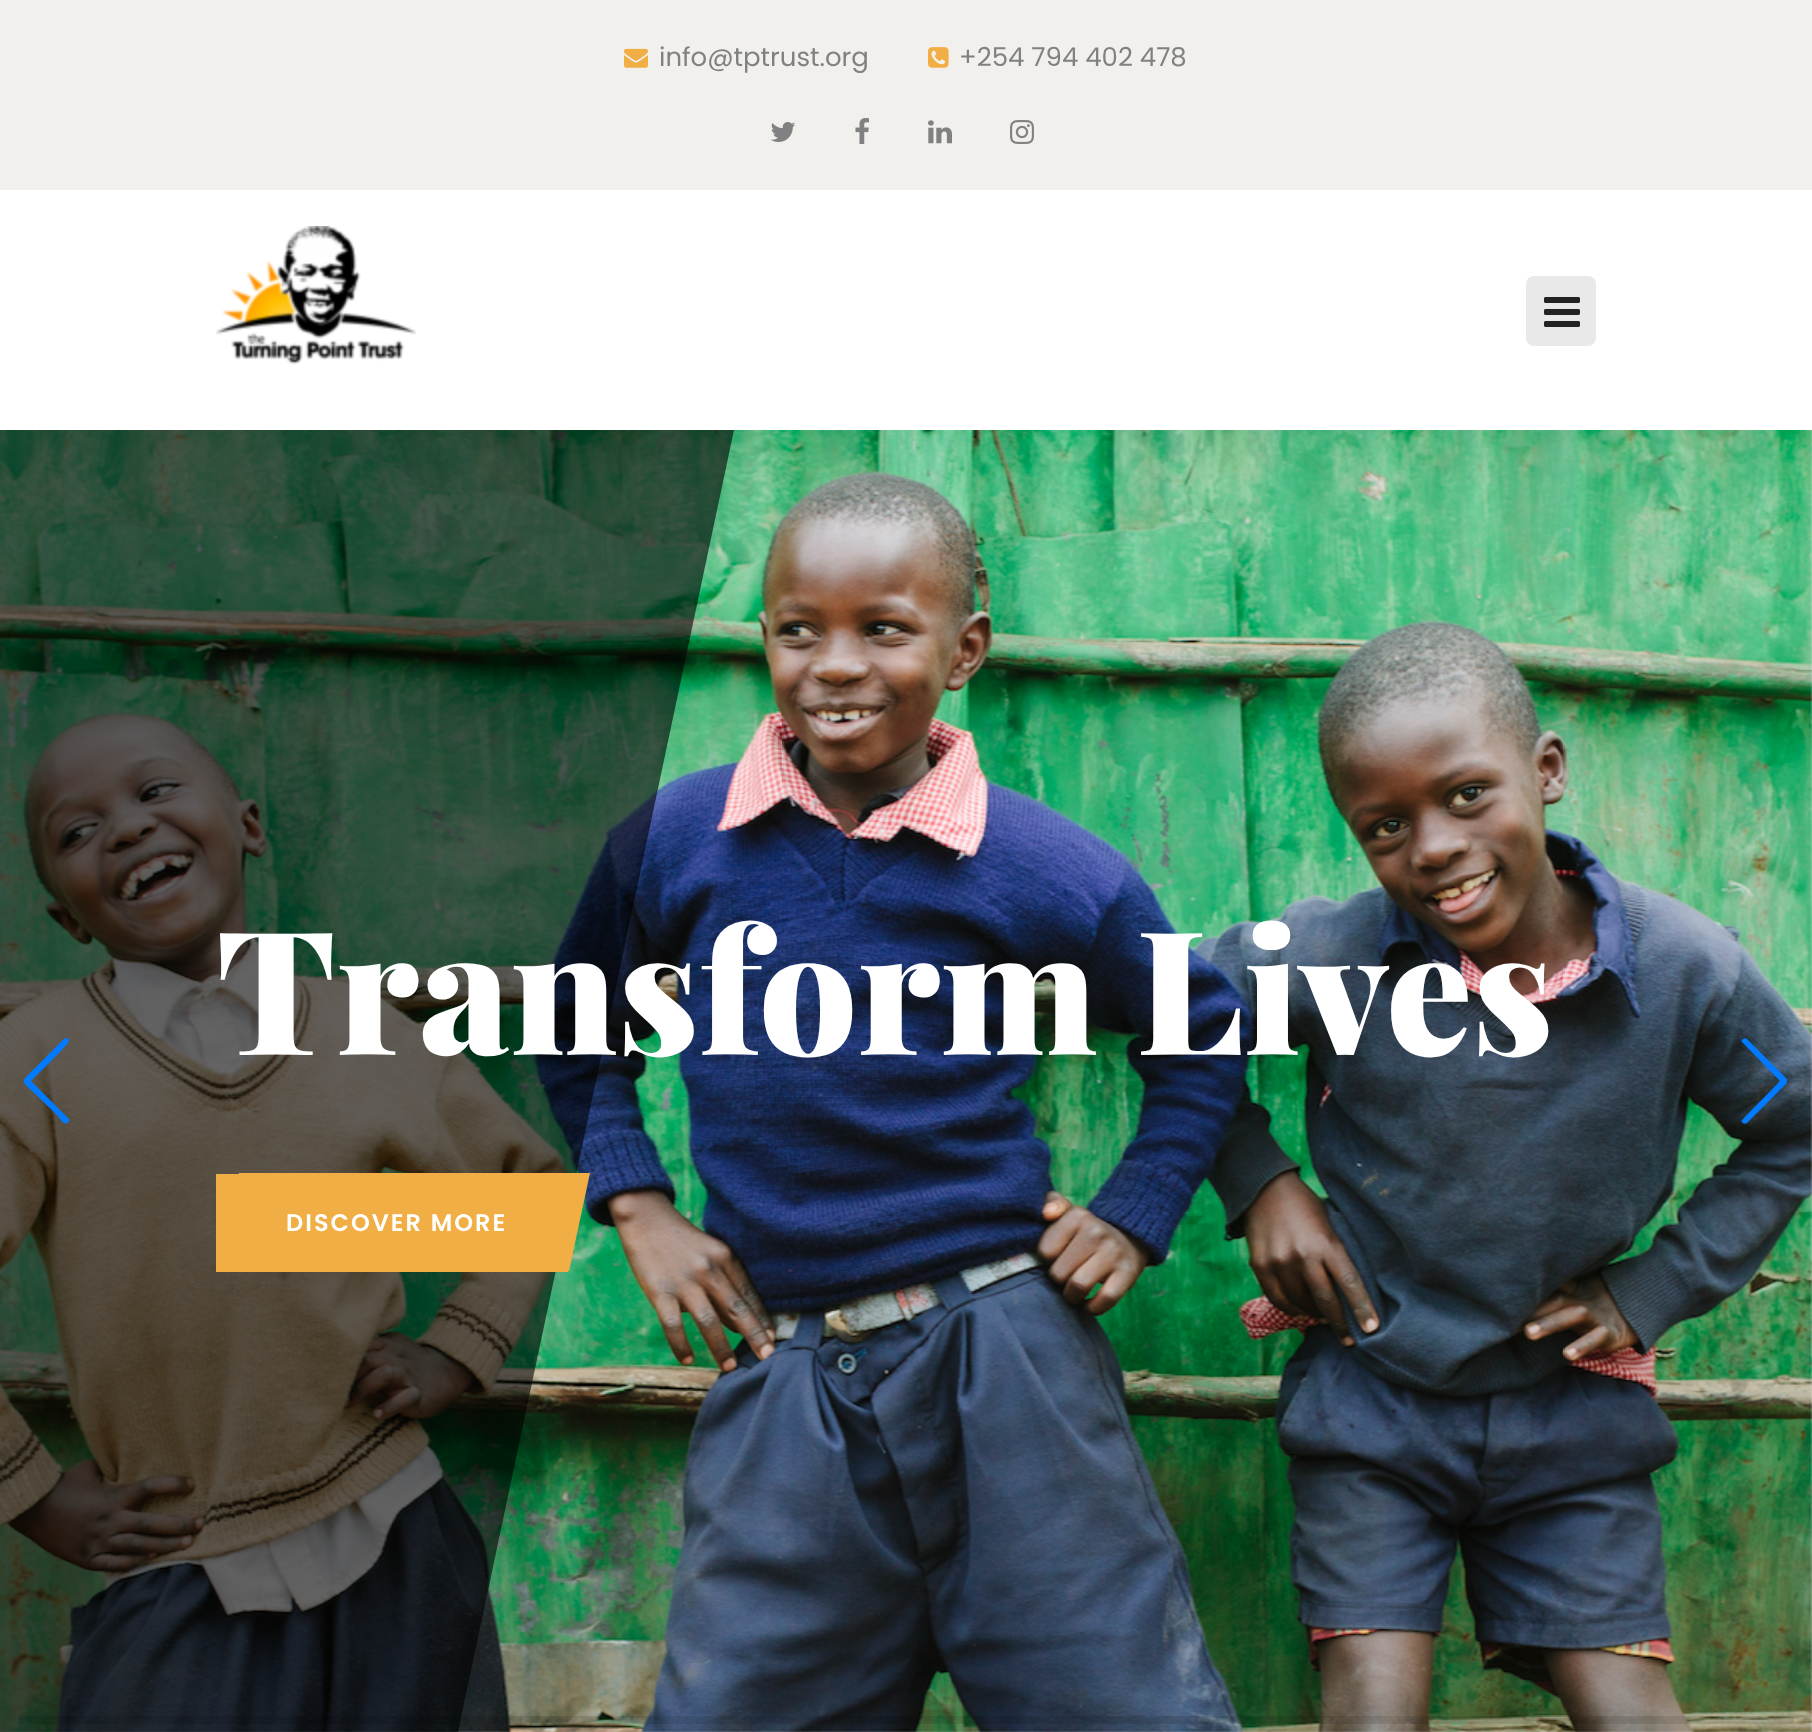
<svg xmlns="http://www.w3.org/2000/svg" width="1812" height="1732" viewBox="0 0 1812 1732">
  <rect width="100%" height="100%" fill="rgb(255,255,255)"/>
  <rect x="0" y="0" width="1812" height="190" fill="rgb(242,240,236)"/>
  <image x="624" y="48" width="24" height="20" href="pic1.png"/>
  <text x="659" y="66" font-family="Poppins" font-size="26" fill="rgb(129,129,129)">info@tptrust.org</text>
  <image x="928" y="47" width="21" height="21" href="pic2.png"/>
  <text x="959" y="66" font-family="Poppins" font-size="26" fill="rgb(129,129,129)">+254 794 402 478</text>
  <image x="771" y="122" width="25" height="20" href="pic3.png"/>
  <image x="855" y="118" width="14" height="26" href="pic4.png"/>
  <image x="928" y="120" width="24" height="24" href="pic5.png"/>
  <image x="1010" y="120" width="24" height="24" href="pic6.png"/>
  <image x="216" y="226" width="200" height="139" href="pic7.png"/>
  <rect x="1526" y="276" width="70" height="70" rx="8" fill="rgb(233,233,233)"/>
  <image x="1544" y="297" width="36" height="30" href="pic8.png"/>
  <rect x="0" y="430" width="1812" height="1302" fill="rgb(238,238,238)"/>
  <image x="0" y="430" width="1812" height="1302" href="pic9.png"/>
  <path d="M-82 430H734L458 1732H-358Z" fill="rgba(0,0,0,0.6)"/>
  <path d="M64 1039C66 1037 69 1038 69 1041C69 1044 35 1077 31 1081L69 1119V1121L68 1123C64 1126 58 1117 58 1116L32 1091C21 1080 21 1082 32 1071Z" fill="rgb(0,122,255)"/>
  <text x="216" y="1055" font-family="Playfair Display" font-size="172" font-weight="900" fill="rgb(255,255,255)">Transform Lives</text>
  <rect x="216" y="1174" width="352" height="98" fill="rgb(241,174,68)"/>
  <path d="M239 1173H590L569 1271H218Z" fill="rgb(241,174,68)"/>
  <text x="286" y="1231" font-family="Poppins" font-size="24" font-weight="600" letter-spacing="2" fill="rgb(255,255,255)">DISCOVER MORE</text>
  <path d="M1743 1123C1741 1122 1741 1120 1743 1119L1780 1081L1743 1043C1741 1042 1741 1040 1743 1039C1744 1038 1746 1038 1747 1039L1786 1078C1787 1079 1787 1080 1787 1081C1787 1082 1787 1083 1786 1084L1747 1123C1746 1124 1744 1124 1743 1123Z" fill="rgb(0,122,255)"/>
  <rect x="18" y="1716" width="1776" height="8" rx="4" fill="rgba(0,0,0,0.1)"/>
</svg>
